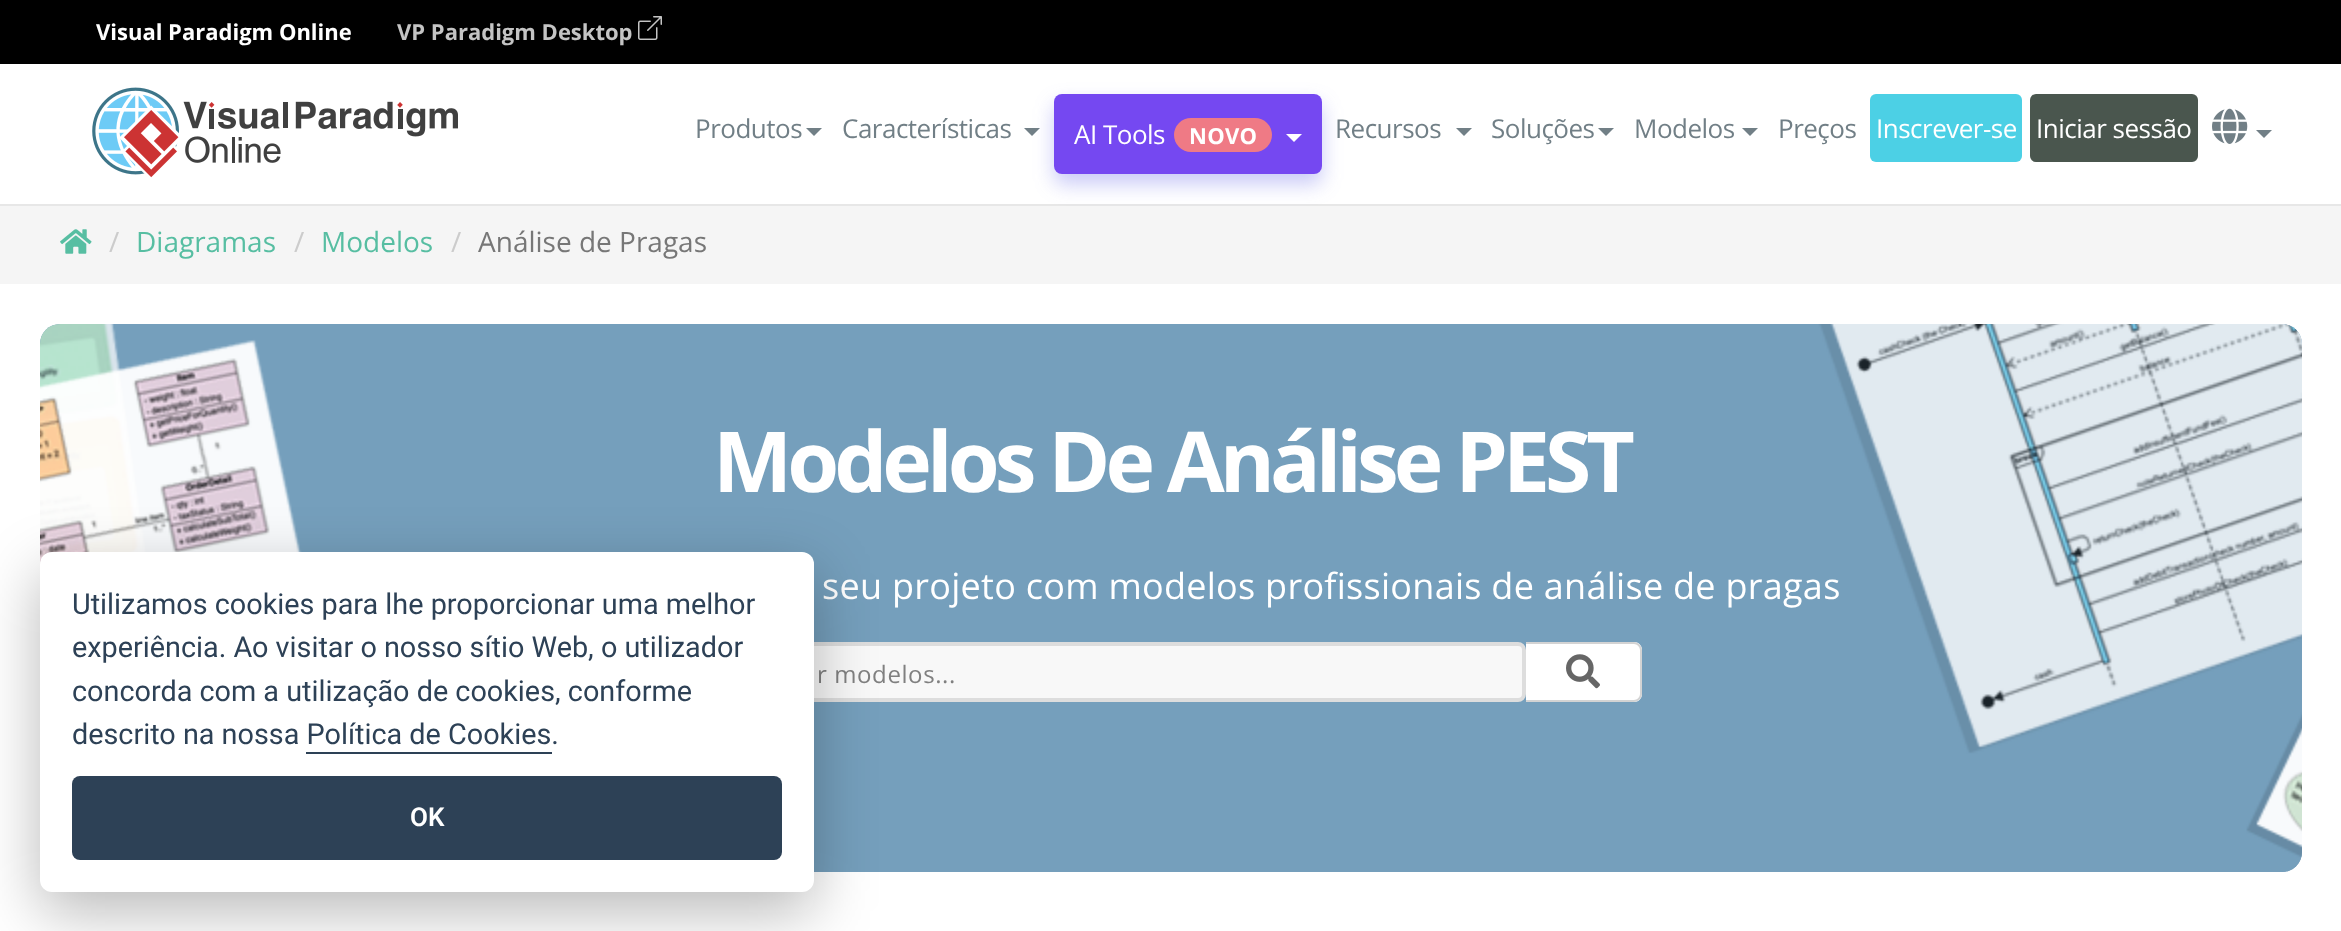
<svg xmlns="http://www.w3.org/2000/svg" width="2341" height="931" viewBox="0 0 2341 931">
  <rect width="100%" height="100%" fill="rgb(255,255,255)"/>
  <rect x="0" y="204" width="2341" height="2" fill="rgb(231,231,231)"/>
  <rect x="0" y="0" width="2341" height="64" fill="rgb(0,0,0)"/>
  <text x="96" y="40" font-family="Open Sans" font-size="22" font-weight="bold" fill="rgb(255,255,255)">Visual Paradigm Online</text>
  <text x="397" y="40" font-family="Open Sans" font-size="22" font-weight="bold" fill="rgb(196,196,196)">VP Paradigm Desktop</text>
  <image x="638" y="16" width="24" height="24" href="pic1.png"/>
  <image x="92" y="87" width="366" height="91" href="pic2.png"/>
  <text x="695" y="138" font-family="Open Sans" font-size="26" letter-spacing="-0.5" fill="rgb(113,127,134)">Produtos</text>
  <path d="M806 128H822L814 136Z" fill="rgb(113,127,134)"/>
  <text x="842" y="138" font-family="Open Sans" font-size="26" letter-spacing="-0.5" fill="rgb(113,127,134)">Características</text>
  <path d="M1024 128H1040L1032 136Z" fill="rgb(113,127,134)"/>
  <rect x="0" y="206" width="2341" height="78" fill="rgb(245,245,245)"/>
  <rect x="1054" y="104" width="268" height="80" rx="8" fill="rgba(76,78,229,0.3)" filter="blur(10px)"/>
  <rect x="1054" y="94" width="268" height="80" rx="8" fill="rgb(117,72,241)"/>
  <text x="1074" y="144" font-family="Open Sans" font-size="26" letter-spacing="-0.5" fill="rgb(255,255,255)">AI Tools</text>
  <rect x="1174" y="118" width="98" height="34" rx="17" fill="rgb(239,122,133)"/>
  <text x="1189" y="144" font-family="Open Sans" font-size="22" font-weight="bold" letter-spacing="0.28" fill="rgb(255,255,255)">NOVO</text>
  <path d="M1286 134H1302L1294 142Z" fill="rgb(255,255,255)"/>
  <text x="1335" y="138" font-family="Open Sans" font-size="26" letter-spacing="-0.5" fill="rgb(113,127,134)">Recursos</text>
  <path d="M1456 128H1472L1464 136Z" fill="rgb(113,127,134)"/>
  <text x="1491" y="138" font-family="Open Sans" font-size="26" letter-spacing="-0.5" fill="rgb(113,127,134)">Soluções</text>
  <path d="M1598 128H1614L1606 136Z" fill="rgb(113,127,134)"/>
  <text x="1634" y="138" font-family="Open Sans" font-size="26" letter-spacing="-0.5" fill="rgb(113,127,134)">Modelos</text>
  <path d="M1742 128H1758L1750 136Z" fill="rgb(113,127,134)"/>
  <text x="1778" y="138" font-family="Open Sans" font-size="26" letter-spacing="-0.5" fill="rgb(113,127,134)">Preços</text>
  <rect x="1870" y="94" width="152" height="68" rx="6" fill="rgb(76,208,229)"/>
  <text x="1876" y="138" font-family="Open Sans" font-size="26" letter-spacing="-0.5" fill="rgb(255,255,255)">Inscrever-se</text>
  <rect x="2030" y="94" width="168" height="68" rx="6" fill="rgb(74,86,78)"/>
  <text x="2036" y="138" font-family="Open Sans" font-size="26" letter-spacing="-0.5" fill="rgb(255,255,255)">Iniciar sessão</text>
  <image x="2212" y="108" width="36" height="36" href="pic3.png"/>
  <path d="M2256 130H2272L2264 138Z" fill="rgb(113,127,134)"/>
  <image x="60" y="229" width="32" height="25" href="pic4.png"/>
  <text x="109" y="252" font-family="Open Sans" font-size="28" fill="rgb(204,204,204)">/</text>
  <text x="136" y="252" font-family="Open Sans" font-size="28" fill="rgb(87,190,162)">Diagramas</text>
  <text x="294" y="252" font-family="Open Sans" font-size="28" fill="rgb(204,204,204)">/</text>
  <text x="321" y="252" font-family="Open Sans" font-size="28" fill="rgb(87,190,162)">Modelos</text>
  <text x="451" y="252" font-family="Open Sans" font-size="28" fill="rgb(204,204,204)">/</text>
  <text x="478" y="252" font-family="Open Sans" font-size="28" fill="rgb(119,119,119)">Análise de Pragas</text>
  <rect x="40" y="324" width="2262" height="548" rx="20" fill="rgb(117,159,188)"/>
  <image x="40" y="324" width="2262" height="548" href="pic5.png"/>
  <text x="713" y="492" font-family="Open Sans" font-size="84" font-weight="bold" letter-spacing="-5" fill="rgb(255,255,255)">Modelos De Análise PEST</text>
  <text x="822" y="599" font-family="Open Sans" font-size="36" letter-spacing="0.28" fill="rgb(255,255,255)">seu projeto com modelos profissionais de análise de pragas</text>
  <rect x="704" y="644" width="820" height="56" rx="6" fill="rgb(248,248,248)" stroke="rgb(221,221,221)" stroke-width="4"/>
  <text x="817" y="683" font-family="Open Sans" font-size="24" letter-spacing="0.6" fill="rgb(128,128,128)">r modelos...</text>
  <path d="M1526 642H1634C1638.5 642 1642 645.5 1642 650V694C1642 698.5 1638.5 702 1634 702H1526Z" fill="rgb(255,255,255)"/>
  <path d="M1526 642H1634C1638 642 1642 646 1642 650V694C1642 698 1638 702 1634 702H1526ZM1526 644H1634C1637 644 1640 647 1640 650V694C1640 697 1637 700 1634 700H1526Z" fill="rgb(211,211,211)" fill-rule="evenodd"/>
  <image x="1566" y="654" width="34" height="35" href="pic6.png"/>
  <rect x="40" y="572" width="774" height="340" rx="12" fill="rgba(2,2,3,0.28)" filter="blur(30px)"/>
  <rect x="40" y="552" width="774" height="340" rx="12" fill="rgb(255,255,255)"/>
  <g font-family="Roboto" font-size="28.8" fill="rgb(45,65,86)">
    <text>
      <tspan x="72" y="614">Utilizamos cookies para lhe proporcionar uma melhor</tspan>
      <tspan x="72" y="657">experiência. Ao visitar o nosso sítio Web, o utilizador</tspan>
      <tspan x="72" y="701">concorda com a utilização de cookies, conforme</tspan>
      <tspan x="72" y="744">descrito na nossa Política de Cookies.</tspan>
    </text>
  </g>
  <rect x="306" y="752" width="246" height="2" fill="rgb(45,65,86)"/>
  <rect x="72" y="776" width="710" height="84" rx="8" fill="rgb(45,65,86)"/>
  <text x="410" y="826" font-family="Roboto" font-size="26" font-weight="600" fill="rgb(255,255,255)">OK</text>
</svg>
